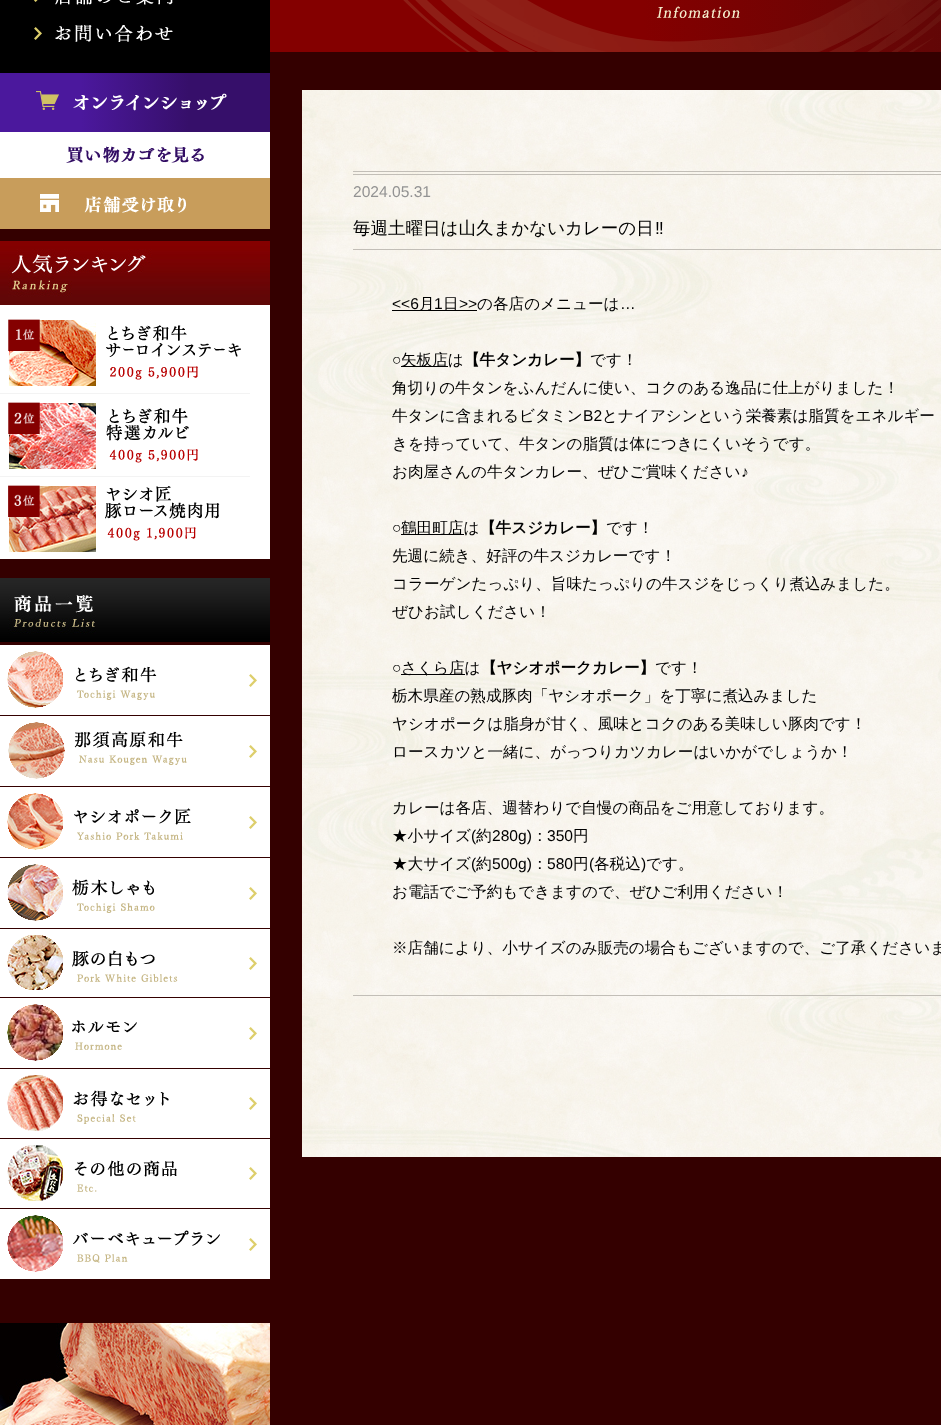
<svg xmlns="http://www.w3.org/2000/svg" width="941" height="1425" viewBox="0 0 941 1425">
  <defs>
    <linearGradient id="g1" gradientUnits="userSpaceOnUse" x1="0" y1="103" x2="270" y2="102"><stop offset="0" stop-color="rgb(75,24,157)"/><stop offset="0.3" stop-color="rgb(75,24,157)"/><stop offset="0.7" stop-color="rgb(54,15,106)"/><stop offset="1" stop-color="rgb(54,15,106)"/></linearGradient>
    <linearGradient id="g2" gradientUnits="userSpaceOnUse" x1="270" y1="-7.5" x2="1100" y2="-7.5"><stop offset="0" stop-color="rgb(132,0,0)"/><stop offset="0.45" stop-color="rgb(132,0,0)"/><stop offset="0.85" stop-color="rgb(94,7,7)"/><stop offset="1" stop-color="rgb(94,7,7)"/></linearGradient>
  </defs>
  <rect width="100%" height="100%" fill="rgb(52,0,0)"/>
  <rect x="0" y="0" width="270" height="73" fill="rgb(0,0,0)"/>
  <image x="34" y="0" width="139" height="5" href="pic1.png"/>
  <image x="34" y="25" width="139" height="17" href="pic2.png"/>
  <rect x="0" y="73" width="270" height="59" fill="url(#g1)"/>
  <image x="36" y="91" width="23" height="19" href="pic3.png"/>
  <image x="73" y="93" width="154" height="18" href="pic4.png"/>
  <rect x="0" y="132" width="270" height="46" fill="rgb(255,255,255)"/>
  <image x="66" y="146" width="138" height="17" href="pic5.png"/>
  <rect x="0" y="178" width="270" height="51" fill="rgb(200,157,91)"/>
  <image x="40" y="194" width="19" height="18" href="pic6.png"/>
  <image x="84" y="196" width="102" height="17" href="pic7.png"/>
  <image x="0" y="241" width="270" height="64" href="pic8.png"/>
  <rect x="0" y="305" width="270" height="254" fill="rgb(255,255,255)"/>
  <rect x="0" y="393" width="250" height="1" fill="rgb(243,243,243)"/>
  <image x="8" y="320" width="88" height="66" href="pic10.png"/>
  <image x="8" y="319" width="32" height="32" href="pic9.png"/>
  <image x="106" y="325" width="135" height="55" href="pic11.png"/>
  <rect x="0" y="476" width="250" height="1" fill="rgb(243,243,243)"/>
  <image x="8" y="403" width="88" height="66" href="pic13.png"/>
  <image x="8" y="402" width="32" height="32" href="pic12.png"/>
  <image x="106" y="408" width="92" height="55" href="pic14.png"/>
  <image x="8" y="486" width="88" height="66" href="pic16.png"/>
  <image x="8" y="485" width="32" height="32" href="pic15.png"/>
  <image x="105" y="486" width="115" height="55" href="pic17.png"/>
  <image x="0" y="578" width="270" height="64" href="pic18.png"/>
  <rect x="0" y="645" width="270" height="70" fill="rgb(255,255,255)"/>
  <image x="249" y="674" width="8" height="13" href="pic19.png"/>
  <image x="7" y="651" width="56" height="57" href="pic20.png"/>
  <image x="7" y="651" width="56" height="57" href="pic21.png"/>
  <image x="76" y="666" width="81" height="34" href="pic22.png"/>
  <rect x="0" y="716" width="270" height="70" fill="rgb(255,255,255)"/>
  <image x="249" y="745" width="8" height="13" href="pic19.png"/>
  <image x="8" y="722" width="57" height="57" href="pic24.png"/>
  <image x="7" y="722" width="58" height="57" href="pic23.png"/>
  <image x="74" y="731" width="113" height="34" href="pic25.png"/>
  <rect x="0" y="787" width="270" height="70" fill="rgb(255,255,255)"/>
  <image x="249" y="816" width="8" height="13" href="pic19.png"/>
  <image x="7" y="793" width="56" height="57" href="pic26.png"/>
  <image x="7" y="793" width="56" height="57" href="pic27.png"/>
  <image x="74" y="808" width="117" height="32" href="pic28.png"/>
  <rect x="0" y="858" width="270" height="70" fill="rgb(255,255,255)"/>
  <image x="249" y="887" width="8" height="13" href="pic19.png"/>
  <image x="7" y="864" width="56" height="57" href="pic29.png"/>
  <image x="7" y="864" width="56" height="57" href="pic30.png"/>
  <image x="72" y="879" width="83" height="34" href="pic31.png"/>
  <rect x="0" y="929" width="270" height="68" fill="rgb(255,255,255)"/>
  <image x="249" y="957" width="8" height="13" href="pic19.png"/>
  <image x="7" y="935" width="56" height="55" href="pic32.png"/>
  <image x="7" y="935" width="56" height="55" href="pic33.png"/>
  <image x="72" y="950" width="106" height="32" href="pic34.png"/>
  <rect x="0" y="998" width="270" height="70" fill="rgb(255,255,255)"/>
  <image x="249" y="1027" width="8" height="13" href="pic19.png"/>
  <image x="7" y="1004" width="56" height="57" href="pic35.png"/>
  <image x="7" y="1004" width="56" height="57" href="pic36.png"/>
  <image x="72" y="1020" width="65" height="30" href="pic37.png"/>
  <rect x="0" y="1069" width="270" height="69" fill="rgb(255,255,255)"/>
  <image x="249" y="1097" width="8" height="13" href="pic19.png"/>
  <image x="7" y="1075" width="56" height="56" href="pic38.png"/>
  <image x="7" y="1075" width="56" height="56" href="pic39.png"/>
  <image x="73" y="1090" width="96" height="34" href="pic40.png"/>
  <rect x="0" y="1139" width="270" height="69" fill="rgb(255,255,255)"/>
  <image x="249" y="1167" width="8" height="13" href="pic19.png"/>
  <image x="7" y="1145" width="56" height="56" href="pic41.png"/>
  <image x="7" y="1145" width="56" height="56" href="pic42.png"/>
  <image x="74" y="1160" width="103" height="32" href="pic43.png"/>
  <rect x="0" y="1209" width="270" height="70" fill="rgb(255,255,255)"/>
  <image x="249" y="1238" width="8" height="13" href="pic19.png"/>
  <image x="7" y="1215" width="56" height="57" href="pic44.png"/>
  <image x="7" y="1215" width="56" height="57" href="pic45.png"/>
  <image x="73" y="1230" width="147" height="33" href="pic46.png"/>
  <image x="0" y="1323" width="270" height="102" href="pic47.png"/>
  <rect x="270" y="0" width="671" height="52" fill="url(#g2)"/>
  <image x="656" y="6" width="84" height="12" href="pic49.png"/>
  <image x="403" y="0" width="538" height="52" href="pic48.png"/>
  <image x="302" y="90" width="639" height="1067" href="pic50.png"/>
  <rect x="353" y="171" width="588" height="1" fill="rgb(194,190,183)"/>
  <rect x="353" y="174" width="588" height="1" fill="rgb(194,190,183)"/>
  <rect x="353" y="995" width="588" height="1" fill="rgb(194,190,183)"/>
  <text x="353" y="197" font-family="Liberation Sans" font-size="15.6" fill="rgb(147,147,147)">2024.05.31</text>
  <rect x="353" y="249" width="588" height="1" fill="rgb(194,190,183)"/>
  <text x="353" y="234" font-family="WenQuanYi Zen Hei" font-size="17.5" font-weight="500" fill="rgb(0,0,0)">毎週土曜日は山久まかないカレーの日</text>
  <text x="655" y="234" font-family="Liberation Sans" font-size="17.5" fill="rgb(0,0,0)">‼</text>
  <text x="392" y="309" font-family="Liberation Sans" font-size="15.6" fill="rgb(0,0,0)">&lt;&lt;6</text>
  <rect x="392" y="310" width="85" height="1" fill="rgb(0,0,0)"/>
  <text x="419" y="309" font-family="WenQuanYi Zen Hei" font-size="15.6" font-weight="500" fill="rgb(0,0,0)">月</text>
  <text x="434" y="309" font-family="Liberation Sans" font-size="15.6" fill="rgb(0,0,0)">1</text>
  <text x="443" y="309" font-family="WenQuanYi Zen Hei" font-size="15.6" font-weight="500" fill="rgb(0,0,0)">日</text>
  <text x="459" y="309" font-family="Liberation Sans" font-size="15.6" fill="rgb(0,0,0)">&gt;&gt;</text>
  <text x="477" y="309" font-family="WenQuanYi Zen Hei" font-size="15.6" font-weight="500" fill="rgb(0,0,0)">の各店のメニューは</text>
  <g font-family="Liberation Sans" font-size="15.6" fill="rgb(0,0,0)">
    <text x="620" y="309">…</text>
    <text x="392" y="365">○</text>
  </g>
  <rect x="401" y="366" width="47" height="1" fill="rgb(0,0,0)"/>
  <text x="401" y="365" font-family="WenQuanYi Zen Hei" font-size="15.6" font-weight="500" fill="rgb(0,0,0)">矢板店は</text>
  <text x="464" y="365" font-family="WenQuanYi Zen Hei" font-size="15.6" font-weight="bold" fill="rgb(0,0,0)">【牛タンカレー】</text>
  <g font-family="WenQuanYi Zen Hei" font-size="15.6" font-weight="500" fill="rgb(0,0,0)">
    <text x="590" y="365">です！</text>
    <text>
      <tspan x="392" y="393">角切りの牛タンをふんだんに使い、コクのある逸品に仕上がりました！</tspan>
      <tspan x="392" y="421">牛タンに含まれるビタミン</tspan>
    </text>
  </g>
  <text x="583" y="421" font-family="Liberation Sans" font-size="15.6" fill="rgb(0,0,0)">B2</text>
  <g font-family="WenQuanYi Zen Hei" font-size="15.6" font-weight="500" fill="rgb(0,0,0)">
    <text x="602" y="421">とナイアシンという栄養素は脂質をエネルギー</text>
    <text>
      <tspan x="392" y="449">きを持っていて、牛タンの脂質は体につきにくいそうです。</tspan>
      <tspan x="392" y="477">お肉屋さんの牛タンカレー、ぜひご賞味ください</tspan>
    </text>
  </g>
  <g font-family="Liberation Sans" font-size="15.6" fill="rgb(0,0,0)">
    <text x="741" y="477">♪</text>
    <text x="392" y="533">○</text>
  </g>
  <rect x="401" y="534" width="63" height="1" fill="rgb(0,0,0)"/>
  <text x="401" y="533" font-family="WenQuanYi Zen Hei" font-size="15.6" font-weight="500" fill="rgb(0,0,0)">鶴田町店は</text>
  <text x="480" y="533" font-family="WenQuanYi Zen Hei" font-size="15.6" font-weight="bold" fill="rgb(0,0,0)">【牛スジカレー】</text>
  <g font-family="WenQuanYi Zen Hei" font-size="15.6" font-weight="500" fill="rgb(0,0,0)">
    <text x="606" y="533">です！</text>
    <text>
      <tspan x="392" y="561">先週に続き、好評の牛スジカレーです！</tspan>
      <tspan x="392" y="589">コラーゲンたっぷり、旨味たっぷりの牛スジをじっくり煮込みました。</tspan>
      <tspan x="392" y="617">ぜひお試しください！</tspan>
    </text>
  </g>
  <text x="392" y="673" font-family="Liberation Sans" font-size="15.6" fill="rgb(0,0,0)">○</text>
  <rect x="401" y="674" width="64" height="1" fill="rgb(0,0,0)"/>
  <text x="401" y="673" font-family="WenQuanYi Zen Hei" font-size="15.6" font-weight="500" fill="rgb(0,0,0)">さくら店は</text>
  <text x="481" y="673" font-family="WenQuanYi Zen Hei" font-size="15.6" font-weight="bold" fill="rgb(0,0,0)">【ヤシオポークカレー】</text>
  <g font-family="WenQuanYi Zen Hei" font-size="15.6" font-weight="500" fill="rgb(0,0,0)">
    <text x="655" y="673">です！</text>
    <text>
      <tspan x="392" y="701">栃木県産の熟成豚肉「ヤシオポーク」を丁寧に煮込みました</tspan>
      <tspan x="392" y="729">ヤシオポークは脂身が甘く、風味とコクのある美味しい豚肉です！</tspan>
      <tspan x="392" y="757">ロースカツと一緒に、がっつりカツカレーはいかがでしょうか！</tspan>
    </text>
    <text>
      <tspan x="392" y="813">カレーは各店、週替わりで自慢の商品をご用意しております。</tspan>
      <tspan x="392" y="841">★小サイズ</tspan>
    </text>
  </g>
  <text x="471" y="841" font-family="Liberation Sans" font-size="15.6" fill="rgb(0,0,0)">(</text>
  <text x="476" y="841" font-family="WenQuanYi Zen Hei" font-size="15.6" font-weight="500" fill="rgb(0,0,0)">約</text>
  <text x="492" y="841" font-family="Liberation Sans" font-size="15.6" fill="rgb(0,0,0)">280g)</text>
  <text x="532" y="841" font-family="WenQuanYi Zen Hei" font-size="15.6" font-weight="500" fill="rgb(0,0,0)">：</text>
  <text x="547" y="841" font-family="Liberation Sans" font-size="15.6" fill="rgb(0,0,0)">350</text>
  <g font-family="WenQuanYi Zen Hei" font-size="15.6" font-weight="500" fill="rgb(0,0,0)">
    <text x="573" y="841">円</text>
    <text x="392" y="869">★大サイズ</text>
  </g>
  <text x="471" y="869" font-family="Liberation Sans" font-size="15.6" fill="rgb(0,0,0)">(</text>
  <text x="476" y="869" font-family="WenQuanYi Zen Hei" font-size="15.6" font-weight="500" fill="rgb(0,0,0)">約</text>
  <text x="492" y="869" font-family="Liberation Sans" font-size="15.6" fill="rgb(0,0,0)">500g)</text>
  <text x="532" y="869" font-family="WenQuanYi Zen Hei" font-size="15.6" font-weight="500" fill="rgb(0,0,0)">：</text>
  <text x="547" y="869" font-family="Liberation Sans" font-size="15.6" fill="rgb(0,0,0)">580</text>
  <text x="573" y="869" font-family="WenQuanYi Zen Hei" font-size="15.6" font-weight="500" fill="rgb(0,0,0)">円</text>
  <text x="589" y="869" font-family="Liberation Sans" font-size="15.6" fill="rgb(0,0,0)">(</text>
  <text x="594" y="869" font-family="WenQuanYi Zen Hei" font-size="15.6" font-weight="500" fill="rgb(0,0,0)">各税込</text>
  <text x="641" y="869" font-family="Liberation Sans" font-size="15.6" fill="rgb(0,0,0)">)</text>
  <g font-family="WenQuanYi Zen Hei" font-size="15.6" font-weight="500" fill="rgb(0,0,0)">
    <text x="646" y="869">です。</text>
    <text x="392" y="897">お電話でご予約もできますので、ぜひご利用ください！</text>
    <text x="392" y="953">※店舗により、小サイズのみ販売の場合もございますので、ご了承くださいま</text>
  </g>
</svg>
